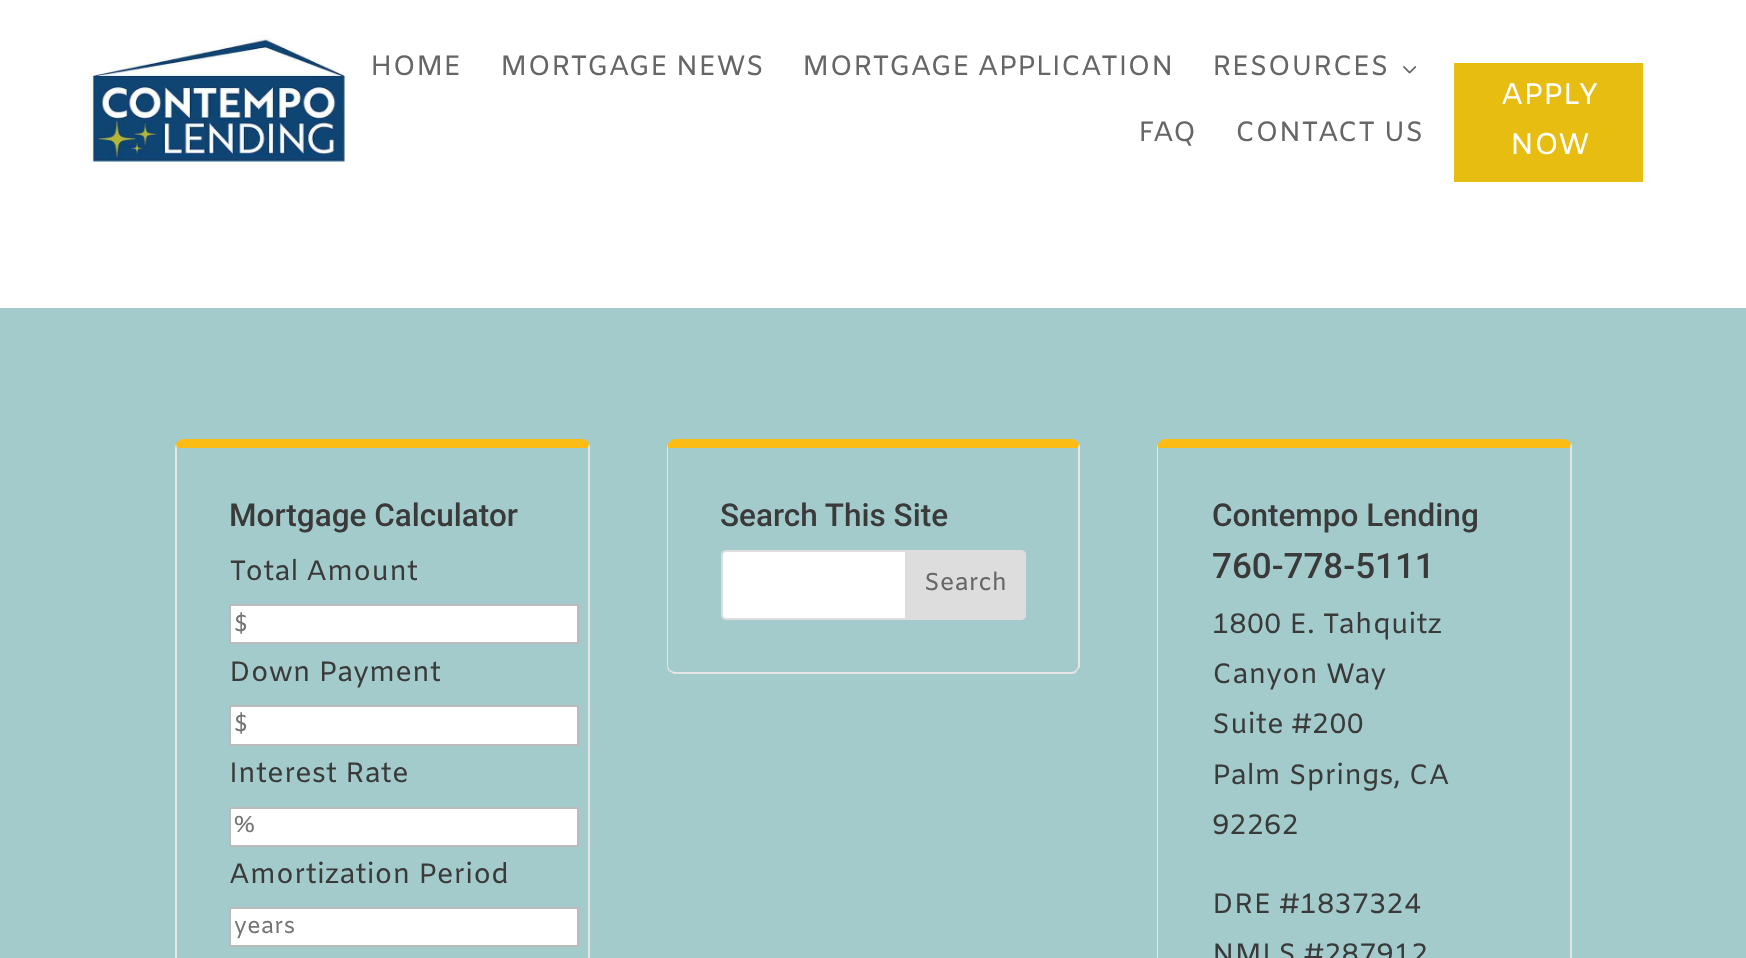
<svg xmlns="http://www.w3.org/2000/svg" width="1746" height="958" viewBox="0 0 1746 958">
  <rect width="100%" height="100%" fill="rgb(255,255,255)"/>
  <image x="88" y="35" width="261" height="127" href="pic1.png"/>
  <g font-family="Amiko" font-size="28" fill="rgb(102,102,102)">
    <text x="370" y="75">HOME</text>
    <text x="500" y="75">MORTGAGE NEWS</text>
    <text x="802" y="75">MORTGAGE APPLICATION</text>
    <text x="1212" y="75">RESOURCES</text>
  </g>
  <image x="1403" y="66" width="14" height="8" href="pic2.png"/>
  <g font-family="Amiko" font-size="28" fill="rgb(102,102,102)">
    <text x="1138" y="141">FAQ</text>
    <text x="1235" y="141">CONTACT US</text>
  </g>
  <rect x="1454" y="63" width="189" height="119" fill="rgb(232,189,18)"/>
  <g font-family="Amiko" font-size="30" fill="rgb(255,255,255)">
    <text x="1501" y="104">APPLY</text>
    <text x="1510" y="154">NOW</text>
  </g>
  <rect x="0" y="308" width="1746" height="650" fill="rgb(164,203,203)"/>
  <path d="M176 444C177 442 179 440 182 439H583C586 440 588 441 589 444L588 448H177V449Z" fill="rgb(251,188,21)"/>
  <path d="M590 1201L587 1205L586 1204C587 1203 588 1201 588 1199V448L589 444L590 446Z" fill="rgb(229,229,229)"/>
  <path d="M175 448V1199C175 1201 176 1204 177 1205L179 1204C178 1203 177 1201 177 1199V449L176 444Z" fill="rgb(229,229,229)"/>
  <text x="229" y="526" font-family="Roboto" font-size="31.5" font-weight="500" fill="rgb(58,58,58)">Mortgage Calculator</text>
  <text x="229" y="580" font-family="Amiko" font-size="28" fill="rgb(58,58,58)">Total Amount</text>
  <rect x="230" y="605" width="348" height="38" fill="rgb(255,255,255)" stroke="rgb(187,187,187)" stroke-width="2"/>
  <text x="234" y="631" font-family="Amiko" font-size="23" fill="rgb(117,117,117)">$</text>
  <text x="229" y="681" font-family="Amiko" font-size="28" fill="rgb(58,58,58)">Down Payment</text>
  <rect x="230" y="706" width="348" height="39" fill="rgb(255,255,255)" stroke="rgb(187,187,187)" stroke-width="2"/>
  <text x="234" y="731" font-family="Amiko" font-size="23" fill="rgb(117,117,117)">$</text>
  <text x="229" y="782" font-family="Amiko" font-size="28" fill="rgb(58,58,58)">Interest Rate</text>
  <rect x="230" y="808" width="348" height="38" fill="rgb(255,255,255)" stroke="rgb(187,187,187)" stroke-width="2"/>
  <text x="234" y="832" font-family="Amiko" font-size="23" fill="rgb(117,117,117)">%</text>
  <text x="229" y="883" font-family="Amiko" font-size="28" fill="rgb(58,58,58)">Amortization Period</text>
  <rect x="230" y="908" width="348" height="38" fill="rgb(255,255,255)" stroke="rgb(187,187,187)" stroke-width="2"/>
  <text x="234" y="933" font-family="Amiko" font-size="23" fill="rgb(117,117,117)">years</text>
  <path d="M668 444C669 442 671 440 674 439H1073C1076 440 1078 441 1079 444L1078 448H668Z" fill="rgb(251,188,21)"/>
  <path d="M1080 667L1077 671L1076 670C1077 669 1078 667 1078 665V448L1079 444L1080 446Z" fill="rgb(229,229,229)"/>
  <path d="M674 674C672 673 671 672 669 671L670 670C672 671 674 672 676 672H1071C1073 672 1075 671 1076 670L1077 671C1076 673 1075 673 1073 674Z" fill="rgb(229,229,229)"/>
  <path d="M669 671C668 670 667 667 667 665V448L668 444V448V665C668 667 669 669 670 670Z" fill="rgb(229,229,229)"/>
  <text x="720" y="526" font-family="Roboto" font-size="31.5" font-weight="500" fill="rgb(58,58,58)">Search This Site</text>
  <rect x="722" y="551" width="303" height="68" rx="4" fill="rgb(255,255,255)" stroke="rgb(221,221,221)" stroke-width="2"/>
  <path d="M906 551H1021C1023 551 1025 553 1025 555V615C1025 617 1023 619 1021 619H906Z" fill="rgb(221,221,221)" stroke="rgb(221,221,221)" stroke-width="2"/>
  <text x="924" y="590" font-family="Amiko" font-size="24.5" fill="rgb(102,102,102)">Search</text>
  <path d="M1158 444C1159 442 1161 440 1164 439H1565C1567 440 1569 441 1571 443L1570 448H1158Z" fill="rgb(251,188,21)"/>
  <path d="M1572 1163L1569 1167L1568 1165C1569 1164 1570 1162 1570 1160V448L1571 443L1572 445Z" fill="rgb(229,229,229)"/>
  <path d="M1160 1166C1158 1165 1157 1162 1157 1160V448L1158 444V448V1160C1158 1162 1159 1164 1161 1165Z" fill="rgb(229,229,229)"/>
  <text x="1212" y="526" font-family="Roboto" font-size="31.5" font-weight="500" fill="rgb(58,58,58)">Contempo Lending</text>
  <text x="1212" y="578" font-family="Roboto" font-size="35" font-weight="500" fill="rgb(58,58,58)">760-778-5111</text>
  <g font-family="Amiko" font-size="28" fill="rgb(58,58,58)">
    <text>
      <tspan x="1212" y="633">1800 E. Tahquitz</tspan>
      <tspan x="1212" y="683">Canyon Way</tspan>
      <tspan x="1212" y="733">Suite #200</tspan>
      <tspan x="1212" y="784">Palm Springs, CA</tspan>
      <tspan x="1212" y="834">92262</tspan>
    </text>
    <text>
      <tspan x="1212" y="913">DRE #1837324</tspan>
      <tspan x="1212" y="963">NMLS #287912</tspan>
    </text>
  </g>
</svg>
